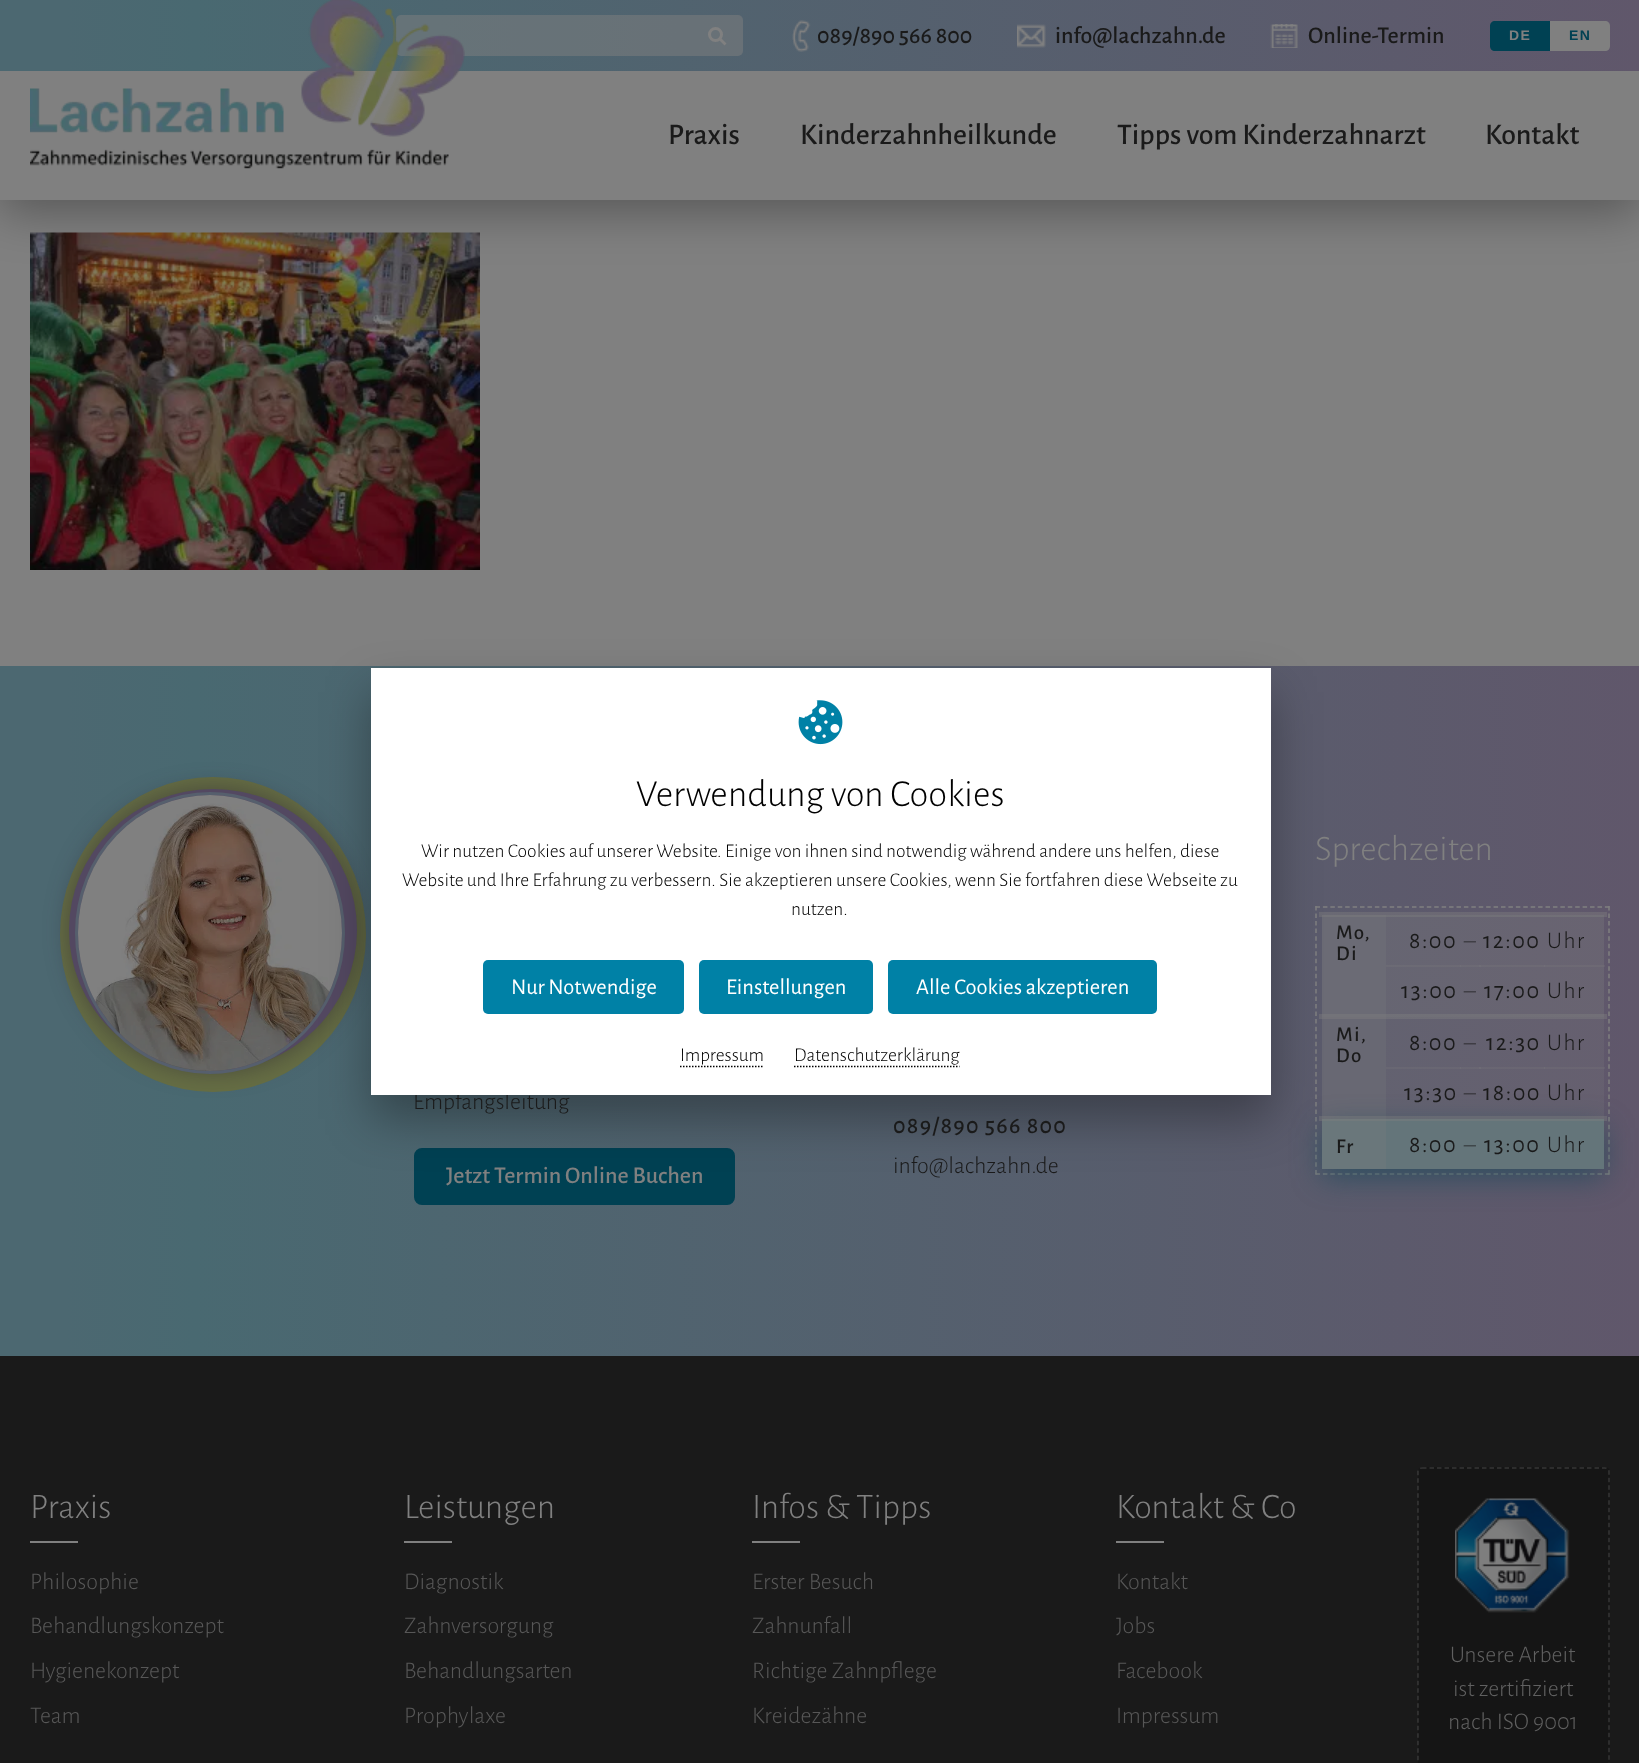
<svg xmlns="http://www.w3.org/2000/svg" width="1639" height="1763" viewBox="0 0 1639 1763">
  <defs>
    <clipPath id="clip1"><path d="M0 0H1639V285H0ZM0 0H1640V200H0Z" clip-rule="evenodd"/></clipPath>
    <linearGradient id="g1" gradientUnits="userSpaceOnUse" x1="0" y1="35" x2="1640" y2="35"><stop offset="0.04" stop-color="rgb(76,104,113)"/><stop offset="0.12" stop-color="rgb(73,105,113)"/><stop offset="1" stop-color="rgb(96,87,107)"/></linearGradient>
    <linearGradient id="g2" gradientUnits="userSpaceOnUse" x1="0" y1="1011" x2="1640" y2="1011"><stop offset="0.04" stop-color="rgb(76,104,113)"/><stop offset="0.12" stop-color="rgb(73,105,113)"/><stop offset="1" stop-color="rgb(96,87,107)"/></linearGradient>
    <linearGradient id="g3" gradientUnits="userSpaceOnUse" x1="0" y1="1011" x2="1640" y2="1011"><stop offset="0.04" stop-color="rgb(97,114,119)"/><stop offset="0.12" stop-color="rgb(95,114,119)"/><stop offset="1" stop-color="rgb(109,103,115)"/></linearGradient>
    <linearGradient id="g4" gradientUnits="userSpaceOnUse" x1="0" y1="1011" x2="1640" y2="1011"><stop offset="0.04" stop-color="rgb(86,109,116)"/><stop offset="0.12" stop-color="rgb(84,110,116)"/><stop offset="1" stop-color="rgb(102,95,111)"/></linearGradient>
    <linearGradient id="g5" gradientUnits="userSpaceOnUse" x1="0" y1="1011" x2="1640" y2="1011"><stop offset="0.04" stop-color="rgb(103,116,121)"/><stop offset="0.12" stop-color="rgb(102,117,121)"/><stop offset="1" stop-color="rgb(112,108,118)"/></linearGradient>
    <linearGradient id="g6" gradientUnits="userSpaceOnUse" x1="0" y1="1011" x2="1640" y2="1011"><stop offset="0.04" stop-color="rgb(95,113,118)"/><stop offset="0.12" stop-color="rgb(93,113,119)"/><stop offset="1" stop-color="rgb(107,101,114)"/></linearGradient>
    <linearGradient id="g7" gradientUnits="userSpaceOnUse" x1="0" y1="1011" x2="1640" y2="1011"><stop offset="0.04" stop-color="rgb(101,116,120)"/><stop offset="0.12" stop-color="rgb(100,116,121)"/><stop offset="1" stop-color="rgb(111,107,117)"/></linearGradient>
    <linearGradient id="g8" gradientUnits="userSpaceOnUse" x1="0" y1="1011" x2="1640" y2="1011"><stop offset="0.04" stop-color="rgb(91,111,117)"/><stop offset="0.12" stop-color="rgb(90,112,118)"/><stop offset="1" stop-color="rgb(105,99,113)"/></linearGradient>
    <linearGradient id="g9" gradientUnits="userSpaceOnUse" x1="0" y1="1011" x2="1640" y2="1011"><stop offset="0.04" stop-color="rgb(106,118,121)"/><stop offset="0.12" stop-color="rgb(105,118,122)"/><stop offset="1" stop-color="rgb(114,111,119)"/></linearGradient>
    <linearGradient id="g10" gradientUnits="userSpaceOnUse" x1="0" y1="1011" x2="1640" y2="1011"><stop offset="0.04" stop-color="rgb(99,115,119)"/><stop offset="0.12" stop-color="rgb(97,115,120)"/><stop offset="1" stop-color="rgb(110,105,116)"/></linearGradient>
    <linearGradient id="g11" gradientUnits="userSpaceOnUse" x1="0" y1="1011" x2="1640" y2="1011"><stop offset="0.04" stop-color="rgb(105,117,121)"/><stop offset="0.12" stop-color="rgb(103,118,121)"/><stop offset="1" stop-color="rgb(113,109,119)"/></linearGradient>
  </defs>
  <rect width="100%" height="100%" fill="rgb(128,128,128)"/>
  <image x="30" y="232" width="450" height="338" href="pic5.png"/>
  <g clip-path="url(#clip1)">
    <rect x="0" y="12" width="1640" height="200" fill="rgba(0,0,0,0.32)" filter="blur(24px)"/>
  </g>
  <rect x="0" y="199" width="1639" height="1" fill="rgba(128,128,128,0.88)"/>
  <rect x="0" y="0" width="1639" height="71" fill="url(#g1)"/>
  <rect x="396" y="15" width="347" height="41" rx="5" fill="rgba(128,128,128,0.5)"/>
  <circle cx="715.5" cy="34.5" r="6" fill="none" stroke="rgb(128,128,128)" stroke-width="3"/>
  <path d="M718 39L720 37L726.5 43.5L724.5 45.5Z" fill="rgb(128,128,128)"/>
  <image x="792" y="20" width="19" height="32" href="pic1.png"/>
  <text x="817" y="43" font-family="Alegreya Sans" font-size="24" font-weight="500" fill="rgb(26,26,26)">089/890 566 800</text>
  <image x="1017" y="24" width="29" height="24" href="pic2.png"/>
  <text x="1055" y="43" font-family="Alegreya Sans" font-size="24" font-weight="500" fill="rgb(26,26,26)">info@lachzahn.de</text>
  <image x="1270" y="24" width="28" height="24" href="pic3.png"/>
  <text x="1308" y="43" font-family="Alegreya Sans" font-size="24" font-weight="500" fill="rgb(26,26,26)">Online-Termin</text>
  <path d="M1495 21H1550V51H1495C1492 51 1490 49 1490 46V26C1490 23 1492 21 1495 21Z" fill="rgb(0,65,83)"/>
  <text x="1509" y="40" font-family="Liberation Sans" font-size="14" font-weight="bold" letter-spacing="1.5" fill="rgb(128,128,128)">DE</text>
  <path d="M1550 21H1605C1608 21 1610 23 1610 26V46C1610 49 1608 51 1605 51H1550Z" fill="rgb(128,128,128)"/>
  <text x="1569" y="40" font-family="Liberation Sans" font-size="14" font-weight="bold" letter-spacing="1.5" fill="rgb(0,65,83)">EN</text>
  <image x="30" y="0" width="435" height="169" href="pic4.png"/>
  <g font-family="Alegreya Sans" font-size="30" font-weight="500" fill="rgb(26,26,26)">
    <text x="668" y="144">Praxis</text>
    <text x="800" y="144">Kinderzahnheilkunde</text>
    <text x="1117" y="144">Tipps vom Kinderzahnarzt</text>
    <text x="1485" y="144">Kontakt</text>
  </g>
  <rect x="0" y="666" width="1639" height="690" fill="url(#g2)"/>
  <rect x="1319" y="912" width="288" height="5" fill="url(#g3)"/>
  <rect x="1319" y="1014" width="288" height="5" fill="url(#g3)"/>
  <ellipse cx="213" cy="934.5" rx="153" ry="157.5" fill="rgb(102,110,68)"/>
  <rect x="69" y="789" width="288" height="282" rx="141" fill="rgba(40,34,47,0.5)" filter="blur(12px)"/>
  <ellipse cx="213" cy="930" rx="144" ry="141" fill="rgb(83,72,97)"/>
  <path d="M210 793.5C283.5 793.5 343.5 856 343.5 933C343.5 1010 283.5 1072.5 210 1072.5C136.5 1072.5 76.5 1010 76.5 933C76.5 856 136.5 793.5 210 793.5Z" fill="none" stroke="rgb(86,95,109)" stroke-width="3"/>
  <image x="78" y="795" width="264" height="276" href="pic7.png"/>
  <rect x="415" y="1149" width="319" height="55" rx="7" fill="rgb(0,65,83)" stroke="rgb(0,65,83)" stroke-width="2"/>
  <path d="M1315.5 907H1609.5" fill="none" stroke="rgb(128,128,128)" stroke-width="1.5" stroke-dasharray="4.5 2.92"/>
  <path d="M1609 906V1174.5" fill="none" stroke="rgb(128,128,128)" stroke-width="1.5" stroke-dasharray="4.5 3.04"/>
  <path d="M1315.5 1174H1609.5" fill="none" stroke="rgb(128,128,128)" stroke-width="1.5" stroke-dasharray="4.5 2.92"/>
  <path d="M1316 906V1174.5" fill="none" stroke="rgb(128,128,128)" stroke-width="1.5" stroke-dasharray="4.5 3.04"/>
  <rect x="1322" y="917" width="64" height="97" fill="rgb(107,107,117)"/>
  <rect x="1322" y="915" width="64" height="2" fill="rgb(115,115,121)"/>
  <rect x="1322" y="1014" width="64" height="3" fill="rgb(115,115,121)"/>
  <rect x="1322" y="1019" width="64" height="100" fill="rgb(104,104,115)"/>
  <rect x="1322" y="1017" width="64" height="2" fill="rgb(114,113,120)"/>
  <rect x="1386" y="1019" width="218" height="100" fill="url(#g4)"/>
  <rect x="1322" y="1128" width="282" height="50" fill="rgba(0,65,83,0.5)" filter="blur(15px)"/>
  <rect x="1386" y="1119" width="218" height="50" fill="rgb(100,117,122)"/>
  <rect x="1322" y="1119" width="64" height="50" fill="rgb(106,119,123)"/>
  <rect x="1319" y="1116" width="288" height="5" fill="rgba(128,128,128,0.4)"/>
  <rect x="371" y="692" width="900" height="427" fill="rgba(0,0,0,0.32)" filter="blur(24px)"/>
  <text x="413" y="1109" font-family="Alegreya Sans" font-size="24" font-weight="300" fill="rgb(26,26,26)">Empfangsleitung</text>
  <rect x="371" y="668" width="900" height="427" fill="rgb(255,255,255)"/>
  <image x="798" y="700" width="45" height="45" href="pic6.png"/>
  <text x="636" y="806" font-family="Alegreya Sans" font-size="38.5" font-weight="300" fill="rgb(0,0,0)">Verwendung von Cookies</text>
  <g font-family="Alegreya Sans" font-size="19.5" font-weight="300" fill="rgb(0,0,0)">
    <text x="421" y="857">Wir nutzen Cookies auf unserer Website. Einige von ihnen sind notwendig während andere uns helfen, diese</text>
    <text x="402" y="886">Website und Ihre Erfahrung zu verbessern. Sie akzeptieren unsere Cookies, wenn Sie fortfahren diese Webseite zu</text>
    <text x="791" y="915">nutzen.</text>
  </g>
  <rect x="483" y="960" width="201" height="54" rx="5" fill="rgb(0,129,166)"/>
  <text x="511" y="994" font-family="Alegreya Sans" font-size="22.5" fill="rgb(255,255,255)">Nur Notwendige</text>
  <rect x="699" y="960" width="174" height="54" rx="5" fill="rgb(0,129,166)"/>
  <text x="726" y="994" font-family="Alegreya Sans" font-size="22.5" fill="rgb(255,255,255)">Einstellungen</text>
  <rect x="888" y="960" width="269" height="54" rx="5" fill="rgb(0,129,166)"/>
  <text x="916" y="994" font-family="Alegreya Sans" font-size="22.5" fill="rgb(255,255,255)">Alle Cookies akzeptieren</text>
  <text x="680" y="1061" font-family="Alegreya Sans" font-size="19.5" font-weight="300" fill="rgb(0,0,0)">Impressum</text>
  <path d="M680 1066.5H764" fill="none" stroke="rgb(0,0,0)" stroke-width="1.5" stroke-dasharray="1.5 1.5"/>
  <text x="794" y="1061" font-family="Alegreya Sans" font-size="19.5" font-weight="300" fill="rgb(0,0,0)">Datenschutzerklärung</text>
  <path d="M794 1066.5H959.5" fill="none" stroke="rgb(0,0,0)" stroke-width="1.5" stroke-dasharray="1.5 1.5"/>
  <rect x="0" y="1356" width="1639" height="407" fill="rgb(26,26,26)"/>
  <rect x="1604" y="965" width="1" height="2" fill="url(#g4)"/>
  <rect x="1604" y="1067" width="1" height="2" fill="url(#g4)"/>
  <rect x="1386" y="1017" width="218" height="2" fill="url(#g5)"/>
  <rect x="1386" y="1067" width="75" height="2" fill="url(#g6)"/>
  <rect x="1460" y="1067" width="21" height="2" fill="url(#g6)"/>
  <rect x="1460" y="1067" width="1" height="2" fill="url(#g7)"/>
  <rect x="1479" y="1067" width="66" height="2" fill="url(#g6)"/>
  <rect x="1479" y="1067" width="2" height="2" fill="url(#g7)"/>
  <rect x="1544" y="1067" width="60" height="2" fill="url(#g6)"/>
  <rect x="1544" y="1067" width="1" height="2" fill="url(#g7)"/>
  <rect x="1386" y="917" width="218" height="97" fill="url(#g8)"/>
  <rect x="1386" y="915" width="218" height="2" fill="url(#g9)"/>
  <rect x="1386" y="1014" width="218" height="3" fill="url(#g9)"/>
  <rect x="1386" y="965" width="75" height="2" fill="url(#g10)"/>
  <rect x="1460" y="965" width="21" height="2" fill="url(#g10)"/>
  <rect x="1460" y="965" width="1" height="2" fill="url(#g11)"/>
  <rect x="1479" y="965" width="66" height="2" fill="url(#g10)"/>
  <rect x="1479" y="965" width="2" height="2" fill="url(#g11)"/>
  <rect x="1544" y="965" width="60" height="2" fill="url(#g10)"/>
  <rect x="1544" y="965" width="1" height="2" fill="url(#g11)"/>
  <text x="446" y="1183" font-family="Alegreya Sans" font-size="24" font-weight="500" fill="rgb(128,128,128)">Jetzt Termin Online Buchen</text>
  <text x="893" y="1133" font-family="Alegreya Sans" font-size="24" font-weight="500" letter-spacing="1.25" fill="rgb(26,26,26)">089/890 566 800</text>
  <text x="893" y="1173" font-family="Alegreya Sans" font-size="24" font-weight="300" fill="rgb(26,26,26)">info@lachzahn.de</text>
  <text x="1315" y="860" font-family="Alegreya Sans" font-size="36" font-weight="300" fill="rgb(128,128,128)">Sprechzeiten</text>
  <g font-family="Alegreya Sans" font-size="21" font-weight="500" letter-spacing="1.5" fill="rgb(26,26,26)">
    <text>
      <tspan x="1336" y="939">Mo,</tspan>
      <tspan x="1336" y="960">Di</tspan>
    </text>
  </g>
  <text x="1409" y="948" font-family="Alegreya Sans" font-size="24" letter-spacing="1.5" fill="rgb(26,26,26)">8:00</text>
  <text x="1464" y="948" font-family="Alegreya Sans" font-size="24" font-weight="300" letter-spacing="1.5" fill="rgb(26,26,26)">–</text>
  <text x="1483" y="948" font-family="Alegreya Sans" font-size="24" letter-spacing="1.5" fill="rgb(26,26,26)">12:00</text>
  <text x="1547" y="948" font-family="Alegreya Sans" font-size="24" font-weight="300" letter-spacing="1.5" fill="rgb(26,26,26)">Uhr</text>
  <text x="1401" y="998" font-family="Alegreya Sans" font-size="24" letter-spacing="1.5" fill="rgb(26,26,26)">13:00</text>
  <text x="1464" y="998" font-family="Alegreya Sans" font-size="24" font-weight="300" letter-spacing="1.5" fill="rgb(26,26,26)">–</text>
  <text x="1484" y="998" font-family="Alegreya Sans" font-size="24" letter-spacing="1.5" fill="rgb(26,26,26)">17:00</text>
  <text x="1547" y="998" font-family="Alegreya Sans" font-size="24" font-weight="300" letter-spacing="1.5" fill="rgb(26,26,26)">Uhr</text>
  <g font-family="Alegreya Sans" font-size="21" font-weight="500" letter-spacing="1.5" fill="rgb(26,26,26)">
    <text>
      <tspan x="1336" y="1041">Mi,</tspan>
      <tspan x="1336" y="1062">Do</tspan>
    </text>
  </g>
  <text x="1409" y="1050" font-family="Alegreya Sans" font-size="24" letter-spacing="1.5" fill="rgb(26,26,26)">8:00</text>
  <text x="1464" y="1050" font-family="Alegreya Sans" font-size="24" font-weight="300" letter-spacing="1.5" fill="rgb(26,26,26)">–</text>
  <text x="1486" y="1050" font-family="Alegreya Sans" font-size="24" letter-spacing="1.5" fill="rgb(26,26,26)">12:30</text>
  <text x="1547" y="1050" font-family="Alegreya Sans" font-size="24" font-weight="300" letter-spacing="1.5" fill="rgb(26,26,26)">Uhr</text>
  <text x="1404" y="1100" font-family="Alegreya Sans" font-size="24" letter-spacing="1.5" fill="rgb(26,26,26)">13:30</text>
  <text x="1464" y="1100" font-family="Alegreya Sans" font-size="24" font-weight="300" letter-spacing="1.5" fill="rgb(26,26,26)">–</text>
  <text x="1483" y="1100" font-family="Alegreya Sans" font-size="24" letter-spacing="1.5" fill="rgb(26,26,26)">18:00</text>
  <text x="1547" y="1100" font-family="Alegreya Sans" font-size="24" font-weight="300" letter-spacing="1.5" fill="rgb(26,26,26)">Uhr</text>
  <text x="1336" y="1153" font-family="Alegreya Sans" font-size="21" font-weight="500" letter-spacing="1.5" fill="rgb(26,26,26)">Fr</text>
  <text x="1409" y="1152" font-family="Alegreya Sans" font-size="24" letter-spacing="1.5" fill="rgb(26,26,26)">8:00</text>
  <text x="1464" y="1152" font-family="Alegreya Sans" font-size="24" font-weight="300" letter-spacing="1.5" fill="rgb(26,26,26)">–</text>
  <text x="1484" y="1152" font-family="Alegreya Sans" font-size="24" letter-spacing="1.5" fill="rgb(26,26,26)">13:00</text>
  <text x="1547" y="1152" font-family="Alegreya Sans" font-size="24" font-weight="300" letter-spacing="1.5" fill="rgb(26,26,26)">Uhr</text>
  <text x="30" y="1518" font-family="Alegreya Sans" font-size="36" font-weight="300" fill="rgb(128,128,128)">Praxis</text>
  <rect x="30" y="1541" width="48" height="2" fill="rgb(128,128,128)"/>
  <g font-family="Alegreya Sans" font-size="24" font-weight="300" fill="rgb(87,87,87)">
    <text>
      <tspan x="30" y="1589">Philosophie</tspan>
      <tspan x="30" y="1633">Behandlungskonzept</tspan>
      <tspan x="30" y="1678">Hygienekonzept</tspan>
      <tspan x="30" y="1723">Team</tspan>
    </text>
  </g>
  <text x="404" y="1518" font-family="Alegreya Sans" font-size="36" font-weight="300" fill="rgb(128,128,128)">Leistungen</text>
  <rect x="404" y="1541" width="48" height="2" fill="rgb(128,128,128)"/>
  <g font-family="Alegreya Sans" font-size="24" font-weight="300" fill="rgb(87,87,87)">
    <text>
      <tspan x="404" y="1589">Diagnostik</tspan>
      <tspan x="404" y="1633">Zahnversorgung</tspan>
      <tspan x="404" y="1678">Behandlungsarten</tspan>
      <tspan x="404" y="1723">Prophylaxe</tspan>
    </text>
  </g>
  <text x="752" y="1518" font-family="Alegreya Sans" font-size="36" font-weight="300" fill="rgb(128,128,128)">Infos &amp; Tipps</text>
  <rect x="752" y="1541" width="48" height="2" fill="rgb(128,128,128)"/>
  <g font-family="Alegreya Sans" font-size="24" font-weight="300" fill="rgb(87,87,87)">
    <text>
      <tspan x="752" y="1589">Erster Besuch</tspan>
      <tspan x="752" y="1633">Zahnunfall</tspan>
      <tspan x="752" y="1678">Richtige Zahnpflege</tspan>
      <tspan x="752" y="1723">Kreidezähne</tspan>
    </text>
  </g>
  <text x="1116" y="1518" font-family="Alegreya Sans" font-size="36" font-weight="300" fill="rgb(128,128,128)">Kontakt &amp; Co</text>
  <rect x="1116" y="1541" width="48" height="2" fill="rgb(128,128,128)"/>
  <g font-family="Alegreya Sans" font-size="24" font-weight="300" fill="rgb(87,87,87)">
    <text>
      <tspan x="1116" y="1589">Kontakt</tspan>
      <tspan x="1116" y="1633">Jobs</tspan>
      <tspan x="1116" y="1678">Facebook</tspan>
      <tspan x="1116" y="1723">Impressum</tspan>
    </text>
  </g>
  <rect x="1418" y="1467" width="192" height="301" rx="5" fill="rgb(21,21,21)"/>
  <path d="M1422 1468H1605C1607 1468 1609 1469.5 1609 1471.5V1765.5C1609 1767.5 1607 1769 1605 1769H1422C1420 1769 1418 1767.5 1418 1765.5V1471.5C1418 1469.5 1420 1468 1422 1468Z" fill="none" stroke="rgba(128,128,128,0.3)" stroke-width="1.5" stroke-dasharray="4.5 3"/>
  <image x="1455" y="1498" width="115" height="115" href="pic8.png"/>
  <g font-family="Alegreya Sans" font-size="24" font-weight="300" fill="rgb(96,96,96)">
    <text x="1450" y="1662">Unsere Arbeit</text>
    <text x="1453" y="1696">ist zertifiziert</text>
    <text x="1448" y="1729">nach ISO 9001</text>
  </g>
</svg>
